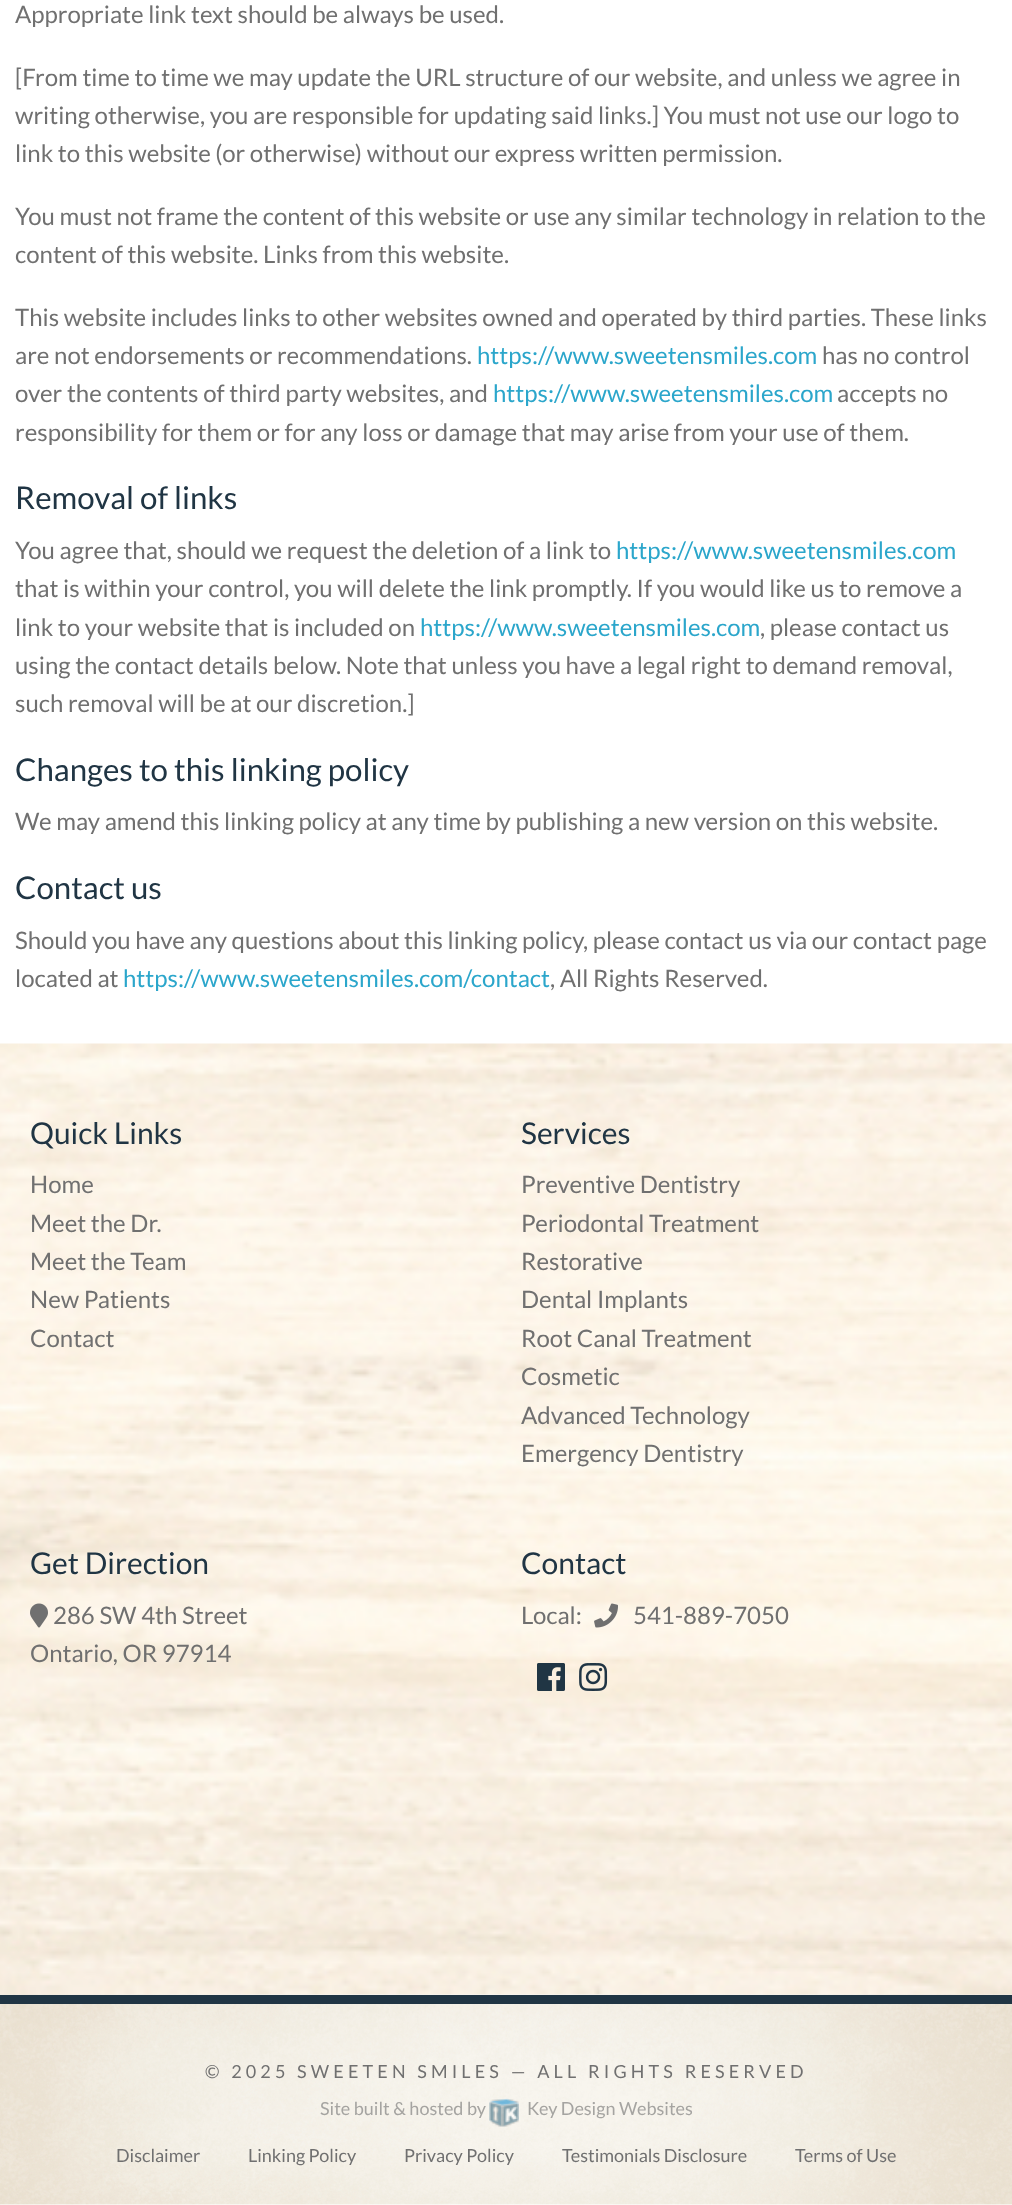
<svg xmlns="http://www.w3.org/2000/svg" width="1012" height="2205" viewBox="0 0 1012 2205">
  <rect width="100%" height="100%" fill="rgb(255,255,255)"/>
  <g font-family="Lato" font-size="24" fill="rgb(112,112,112)">
    <text x="15" y="23">Appropriate link text should be always be used.</text>
    <text>
      <tspan x="15" y="86">[From time to time we may update the URL structure of our website, and unless we agree in</tspan>
      <tspan x="15" y="124">writing otherwise, you are responsible for updating said links.] You must not use our logo to</tspan>
      <tspan x="15" y="162">link to this website (or otherwise) without our express written permission.</tspan>
    </text>
    <text>
      <tspan x="15" y="225">You must not frame the content of this website or use any similar technology in relation to the</tspan>
      <tspan x="15" y="263">content of this website. Links from this website.</tspan>
    </text>
    <text>
      <tspan x="15" y="326">This website includes links to other websites owned and operated by third parties. These links</tspan>
      <tspan x="15" y="364">are not endorsements or recommendations.</tspan>
    </text>
  </g>
  <text x="477" y="364" font-family="Lato" font-size="24" fill="rgb(43,166,203)">https://www.sweetensmiles.com</text>
  <g font-family="Lato" font-size="24" fill="rgb(112,112,112)">
    <text x="822" y="364">has no control</text>
    <text x="15" y="402">over the contents of third party websites, and</text>
  </g>
  <text x="493" y="402" font-family="Lato" font-size="24" fill="rgb(43,166,203)">https://www.sweetensmiles.com</text>
  <g font-family="Lato" font-size="24" fill="rgb(112,112,112)">
    <text x="837" y="402">accepts no</text>
    <text x="15" y="441">responsibility for them or for any loss or damage that may arise from your use of them.</text>
  </g>
  <text x="15" y="509" font-family="Lato" font-size="31.25" fill="rgb(32,53,68)">Removal of links</text>
  <text x="15" y="559" font-family="Lato" font-size="24" fill="rgb(112,112,112)">You agree that, should we request the deletion of a link to</text>
  <text x="616" y="559" font-family="Lato" font-size="24" fill="rgb(43,166,203)">https://www.sweetensmiles.com</text>
  <g font-family="Lato" font-size="24" fill="rgb(112,112,112)">
    <text>
      <tspan x="15" y="597">that is within your control, you will delete the link promptly. If you would like us to remove a</tspan>
      <tspan x="15" y="636">link to your website that is included on</tspan>
    </text>
  </g>
  <text x="420" y="636" font-family="Lato" font-size="24" fill="rgb(43,166,203)">https://www.sweetensmiles.com</text>
  <g font-family="Lato" font-size="24" fill="rgb(112,112,112)">
    <text x="760" y="636">, please contact us</text>
    <text>
      <tspan x="15" y="674">using the contact details below. Note that unless you have a legal right to demand removal,</tspan>
      <tspan x="15" y="712">such removal will be at our discretion.]</tspan>
    </text>
  </g>
  <text x="15" y="781" font-family="Lato" font-size="31.25" fill="rgb(32,53,68)">Changes to this linking policy</text>
  <text x="15" y="830" font-family="Lato" font-size="24" fill="rgb(112,112,112)">We may amend this linking policy at any time by publishing a new version on this website.</text>
  <text x="15" y="899" font-family="Lato" font-size="31.25" fill="rgb(32,53,68)">Contact us</text>
  <g font-family="Lato" font-size="24" fill="rgb(112,112,112)">
    <text>
      <tspan x="15" y="949">Should you have any questions about this linking policy, please contact us via our contact page</tspan>
      <tspan x="15" y="987">located at</tspan>
    </text>
  </g>
  <text x="123" y="987" font-family="Lato" font-size="24" fill="rgb(43,166,203)">https://www.sweetensmiles.com/contact</text>
  <text x="550" y="987" font-family="Lato" font-size="24" fill="rgb(112,112,112)">, All Rights Reserved.</text>
  <image x="0" y="1043" width="1012" height="952" href="pic1.png"/>
  <text x="30" y="1144" font-family="Lato" font-size="30" fill="rgb(32,53,68)">Quick Links</text>
  <g font-family="Lato" font-size="24" fill="rgb(112,112,112)">
    <text>
      <tspan x="30" y="1193">Home</tspan>
      <tspan x="30" y="1232">Meet the Dr.</tspan>
      <tspan x="30" y="1270">Meet the Team</tspan>
      <tspan x="30" y="1308">New Patients</tspan>
      <tspan x="30" y="1347">Contact</tspan>
    </text>
  </g>
  <text x="521" y="1144" font-family="Lato" font-size="30" fill="rgb(32,53,68)">Services</text>
  <g font-family="Lato" font-size="24" fill="rgb(112,112,112)">
    <text>
      <tspan x="521" y="1193">Preventive Dentistry</tspan>
      <tspan x="521" y="1232">Periodontal Treatment</tspan>
      <tspan x="521" y="1270">Restorative</tspan>
      <tspan x="521" y="1308">Dental Implants</tspan>
      <tspan x="521" y="1347">Root Canal Treatment</tspan>
      <tspan x="521" y="1385">Cosmetic</tspan>
      <tspan x="521" y="1424">Advanced Technology</tspan>
      <tspan x="521" y="1462">Emergency Dentistry</tspan>
    </text>
  </g>
  <text x="30" y="1574" font-family="Lato" font-size="30" fill="rgb(32,53,68)">Get Direction</text>
  <image x="30" y="1603" width="18" height="25" href="pic2.png"/>
  <g font-family="Lato" font-size="24" fill="rgb(112,112,112)">
    <text x="53" y="1624">286 SW 4th Street</text>
    <text x="30" y="1662">Ontario, OR 97914</text>
  </g>
  <text x="521" y="1574" font-family="Lato" font-size="30" fill="rgb(32,53,68)">Contact</text>
  <text x="521" y="1624" font-family="Lato" font-size="24" fill="rgb(112,112,112)">Local:</text>
  <image x="594" y="1603" width="24" height="25" href="pic3.png"/>
  <text x="633" y="1624" font-family="Lato" font-size="24" fill="rgb(112,112,112)">541-889-7050</text>
  <image x="537" y="1663" width="28" height="28" href="pic4.png"/>
  <image x="579" y="1663" width="29" height="28" href="pic5.png"/>
  <image x="0" y="1994" width="1012" height="211" href="pic6.png"/>
  <rect x="0" y="1995" width="1012" height="9" fill="rgb(32,53,68)"/>
  <text x="205" y="2078" font-family="Lato" font-size="18" letter-spacing="4.15" fill="rgb(112,112,112)">© 2025 SWEETEN SMILES — ALL RIGHTS RESERVED</text>
  <text x="320" y="2115" font-family="Lato" font-size="18" fill="rgb(165,164,161)">Site built &amp; hosted by</text>
  <image x="489" y="2098" width="30" height="29" href="pic7.png"/>
  <text x="527" y="2115" font-family="Lato" font-size="18" fill="rgb(165,164,161)">Key Design Websites</text>
  <g font-family="Lato" font-size="18" fill="rgb(112,112,112)">
    <text x="116" y="2162">Disclaimer</text>
    <text x="248" y="2162">Linking Policy</text>
    <text x="404" y="2162">Privacy Policy</text>
    <text x="562" y="2162">Testimonials Disclosure</text>
    <text x="795" y="2162">Terms of Use</text>
  </g>
</svg>
